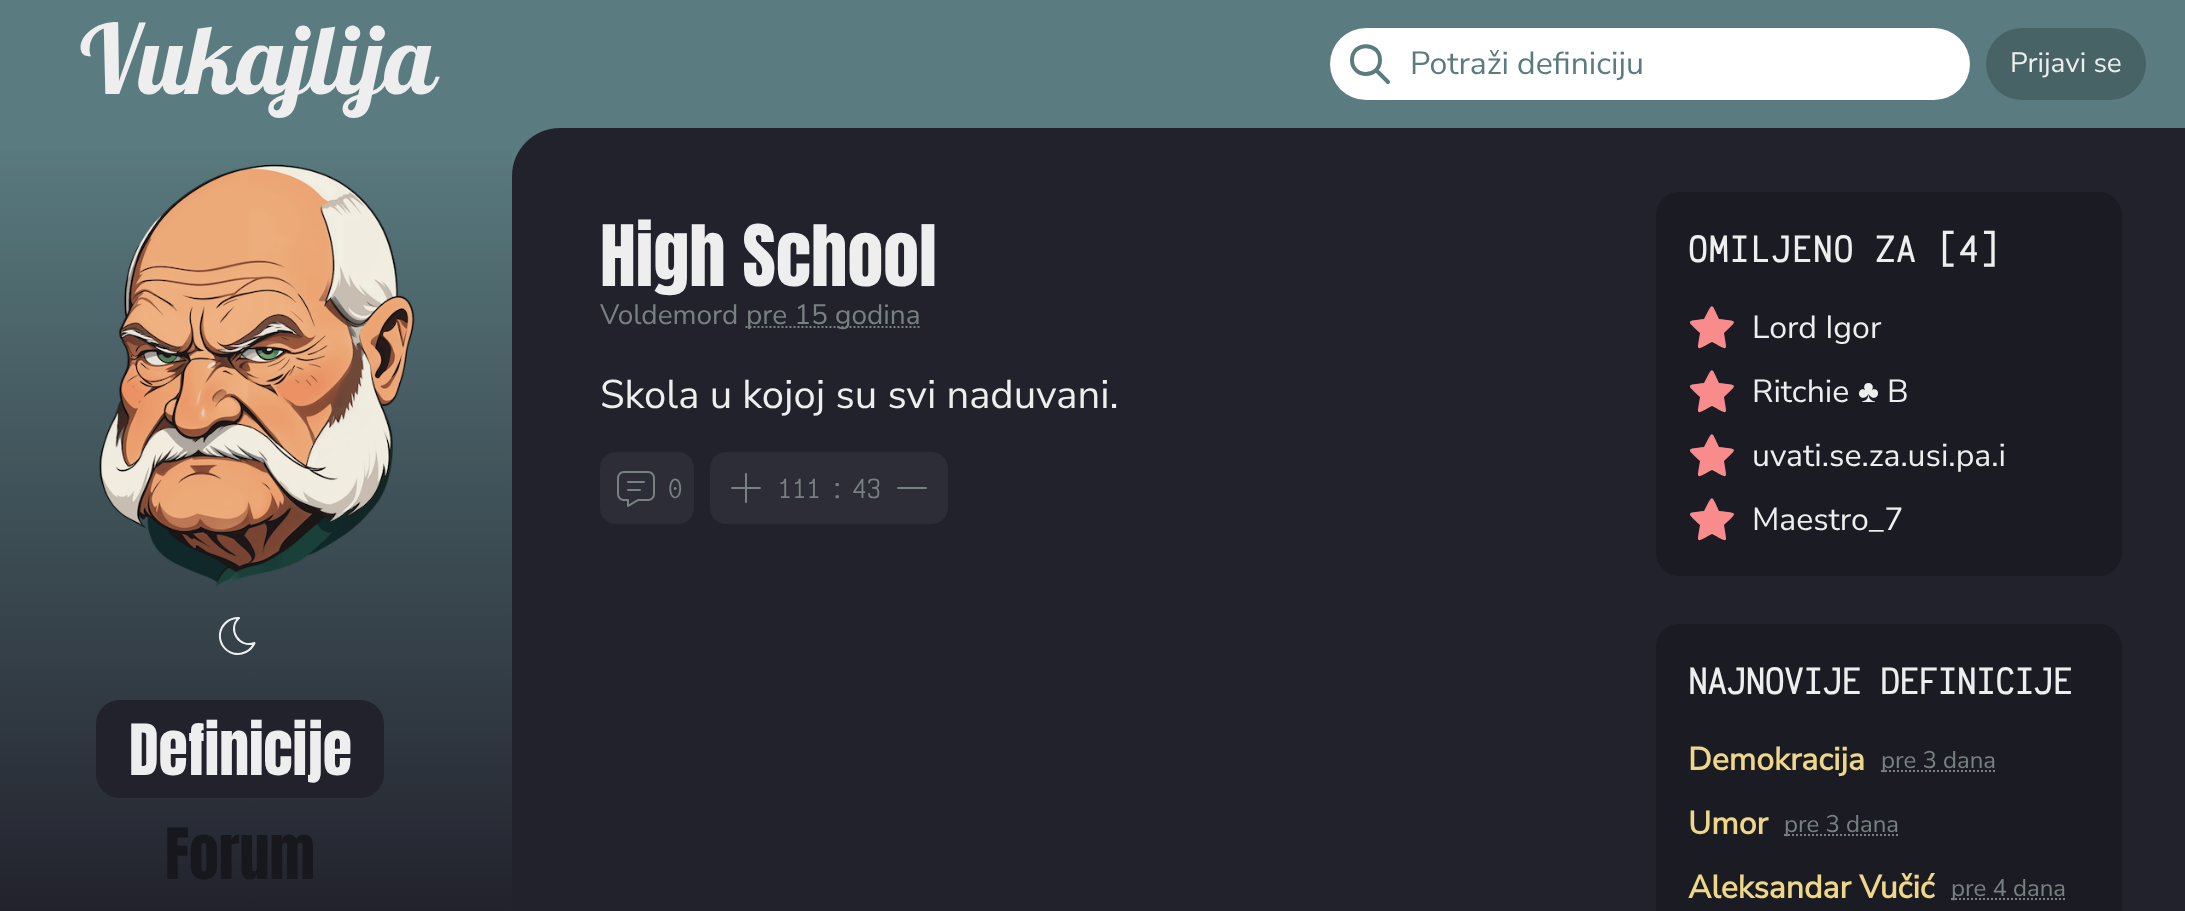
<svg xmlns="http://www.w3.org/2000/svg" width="2185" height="911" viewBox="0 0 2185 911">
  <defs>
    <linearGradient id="g1" gradientUnits="userSpaceOnUse" x1="256" y1="128" x2="256" y2="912"><stop offset="0" stop-color="rgb(90,124,128)"/><stop offset="1" stop-color="rgb(34,34,44)"/></linearGradient>
  </defs>
  <rect width="100%" height="100%" fill="rgb(90,124,128)"/>
  <text x="80" y="94" font-family="Pattaya" font-size="96" fill="rgb(238,238,238)">Vukajlija</text>
  <rect x="1330" y="28" width="640" height="72" rx="36" fill="rgb(255,255,255)"/>
  <path d="M1352 60C1352 78.5 1380 78.5 1380 60C1380 41.5 1352 41.5 1352 60M1388 82L1376 70" fill="none" stroke="rgb(90,124,128)" stroke-width="4" stroke-linecap="round" stroke-linejoin="round"/>
  <text x="1410" y="74" font-family="Nunito Sans" font-size="32" fill="rgb(90,124,128)">Potraži definiciju</text>
  <rect x="1986" y="28" width="160" height="72" rx="36" fill="rgb(72,99,102)"/>
  <text x="2010" y="72" font-family="Nunito Sans" font-size="28" fill="rgb(238,238,238)">Prijavi se</text>
  <rect x="0" y="150" width="512" height="761" fill="url(#g1)"/>
  <image x="99" y="164" width="316" height="423" href="pic1.png"/>
  <path d="M238 618H239C226.5 629 239.5 649 254.5 643C251 651 242 655.5 233.5 653.5C224.5 651 219 642.5 220 633.5C221.5 624.5 229 618 238 618Z" fill="none" stroke="rgb(239,239,239)" stroke-width="2" stroke-linecap="round" stroke-linejoin="round"/>
  <rect x="96" y="700" width="288" height="98" rx="24" fill="rgb(34,34,44)"/>
  <text x="129" y="775" font-family="Anton" font-size="60" fill="rgb(238,238,238)">Definicije</text>
  <text x="165" y="879" font-family="Anton" font-size="60" fill="rgb(23,24,30)">Forum</text>
  <path d="M560 128H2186V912H512V176C512 149.5 533.5 128 560 128Z" fill="rgb(34,34,44)"/>
  <text x="600" y="286" font-family="Anton" font-size="72" fill="rgb(238,238,238)">High School</text>
  <text x="600" y="324" font-family="Nunito Sans" font-size="28" fill="rgb(120,129,130)">Voldemord</text>
  <path d="M745.5 327H920" fill="none" stroke="rgb(120,129,130)" stroke-width="2" stroke-dasharray="2 2"/>
  <text x="746" y="324" font-family="Nunito Sans" font-size="28" fill="rgb(120,129,130)">pre 15 godina</text>
  <text x="600" y="408" font-family="Nunito Sans" font-size="40" fill="rgb(238,238,238)">Skola u kojoj su svi naduvani.</text>
  <rect x="600" y="452" width="94" height="72" rx="16" fill="rgb(45,45,55)"/>
  <image x="617" y="471" width="38" height="36" href="pic2.png"/>
  <text x="668" y="498" font-family="Victor Mono" font-size="24" fill="rgb(120,129,130)">0</text>
  <rect x="710" y="452" width="238" height="72" rx="16" fill="rgb(45,45,55)"/>
  <path d="M746 474V502M732 488H760" fill="none" stroke="rgb(120,129,130)" stroke-width="2" stroke-linecap="round" stroke-linejoin="round"/>
  <g font-family="Victor Mono" font-size="24" fill="rgb(120,129,130)">
    <text x="778" y="498">111</text>
    <text x="830" y="498">:</text>
    <text x="852" y="498">43</text>
  </g>
  <path d="M898 488H926" fill="none" stroke="rgb(120,129,130)" stroke-width="2" stroke-linecap="round" stroke-linejoin="round"/>
  <rect x="1656" y="192" width="466" height="384" rx="24" fill="rgb(27,27,35)"/>
  <text x="1688" y="262" font-family="Victor Mono" font-size="32" font-weight="bold" letter-spacing="1.6" fill="rgb(238,238,238)">OMILJENO ZA [4]</text>
  <path d="M1704 319C1686 321 1686 320 1700 333C1697 352 1695 351 1712 342C1729 351 1727 352 1724 333C1738 320 1738 321 1719 319C1711 302 1713 302 1704 319Z" fill="rgb(248,139,139)"/>
  <text x="1752" y="338" font-family="Nunito Sans" font-size="32" fill="rgb(238,238,238)">Lord Igor</text>
  <path d="M1704 383C1686 385 1686 384 1700 397C1697 416 1695 415 1712 406C1729 415 1727 416 1724 397C1738 384 1738 385 1719 383C1711 366 1713 366 1704 383Z" fill="rgb(248,139,139)"/>
  <text x="1752" y="402" font-family="Nunito Sans" font-size="32" fill="rgb(238,238,238)">Ritchie</text>
  <text x="1858" y="402" font-family="Liberation Serif" font-size="32" fill="rgb(238,238,238)">♣</text>
  <text x="1887" y="402" font-family="Nunito Sans" font-size="32" fill="rgb(238,238,238)">B</text>
  <path d="M1704 447C1686 449 1686 448 1700 461C1697 480 1695 479 1712 470C1729 479 1727 480 1724 461C1738 448 1738 449 1719 447C1711 430 1713 430 1704 447Z" fill="rgb(248,139,139)"/>
  <text x="1752" y="466" font-family="Nunito Sans" font-size="32" fill="rgb(238,238,238)">uvati.se.za.usi.pa.i</text>
  <path d="M1704 511C1686 513 1686 512 1700 525C1697 544 1695 543 1712 534C1729 543 1727 544 1724 525C1738 512 1738 513 1719 511C1711 494 1713 494 1704 511Z" fill="rgb(248,139,139)"/>
  <text x="1752" y="530" font-family="Nunito Sans" font-size="32" fill="rgb(238,238,238)">Maestro_7</text>
  <path d="M1680 624H2098C2111.5 624 2122 634.5 2122 648V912H1656V648C1656 634.5 1666.5 624 1680 624Z" fill="rgb(27,27,35)"/>
  <text x="1688" y="694" font-family="Victor Mono" font-size="32" font-weight="bold" fill="rgb(238,238,238)">NAJNOVIJE DEFINICIJE</text>
  <text x="1688" y="770" font-family="Nunito Sans" font-size="32" font-weight="bold" fill="rgb(239,215,138)">Demokracija</text>
  <path d="M1881 771H1996" fill="none" stroke="rgb(120,129,130)" stroke-width="2" stroke-dasharray="2 2"/>
  <text x="1881" y="768" font-family="Nunito Sans" font-size="24" fill="rgb(120,129,130)">pre 3 dana</text>
  <text x="1688" y="834" font-family="Nunito Sans" font-size="32" font-weight="bold" fill="rgb(239,215,138)">Umor</text>
  <path d="M1784 835H1899" fill="none" stroke="rgb(120,129,130)" stroke-width="2" stroke-dasharray="2 2"/>
  <text x="1784" y="832" font-family="Nunito Sans" font-size="24" fill="rgb(120,129,130)">pre 3 dana</text>
  <text x="1688" y="898" font-family="Nunito Sans" font-size="32" font-weight="bold" fill="rgb(239,215,138)">Aleksandar Vučić</text>
  <path d="M1951 899H2066" fill="none" stroke="rgb(120,129,130)" stroke-width="2" stroke-dasharray="2 2"/>
  <text x="1951" y="896" font-family="Nunito Sans" font-size="24" fill="rgb(120,129,130)">pre 4 dana</text>
</svg>
